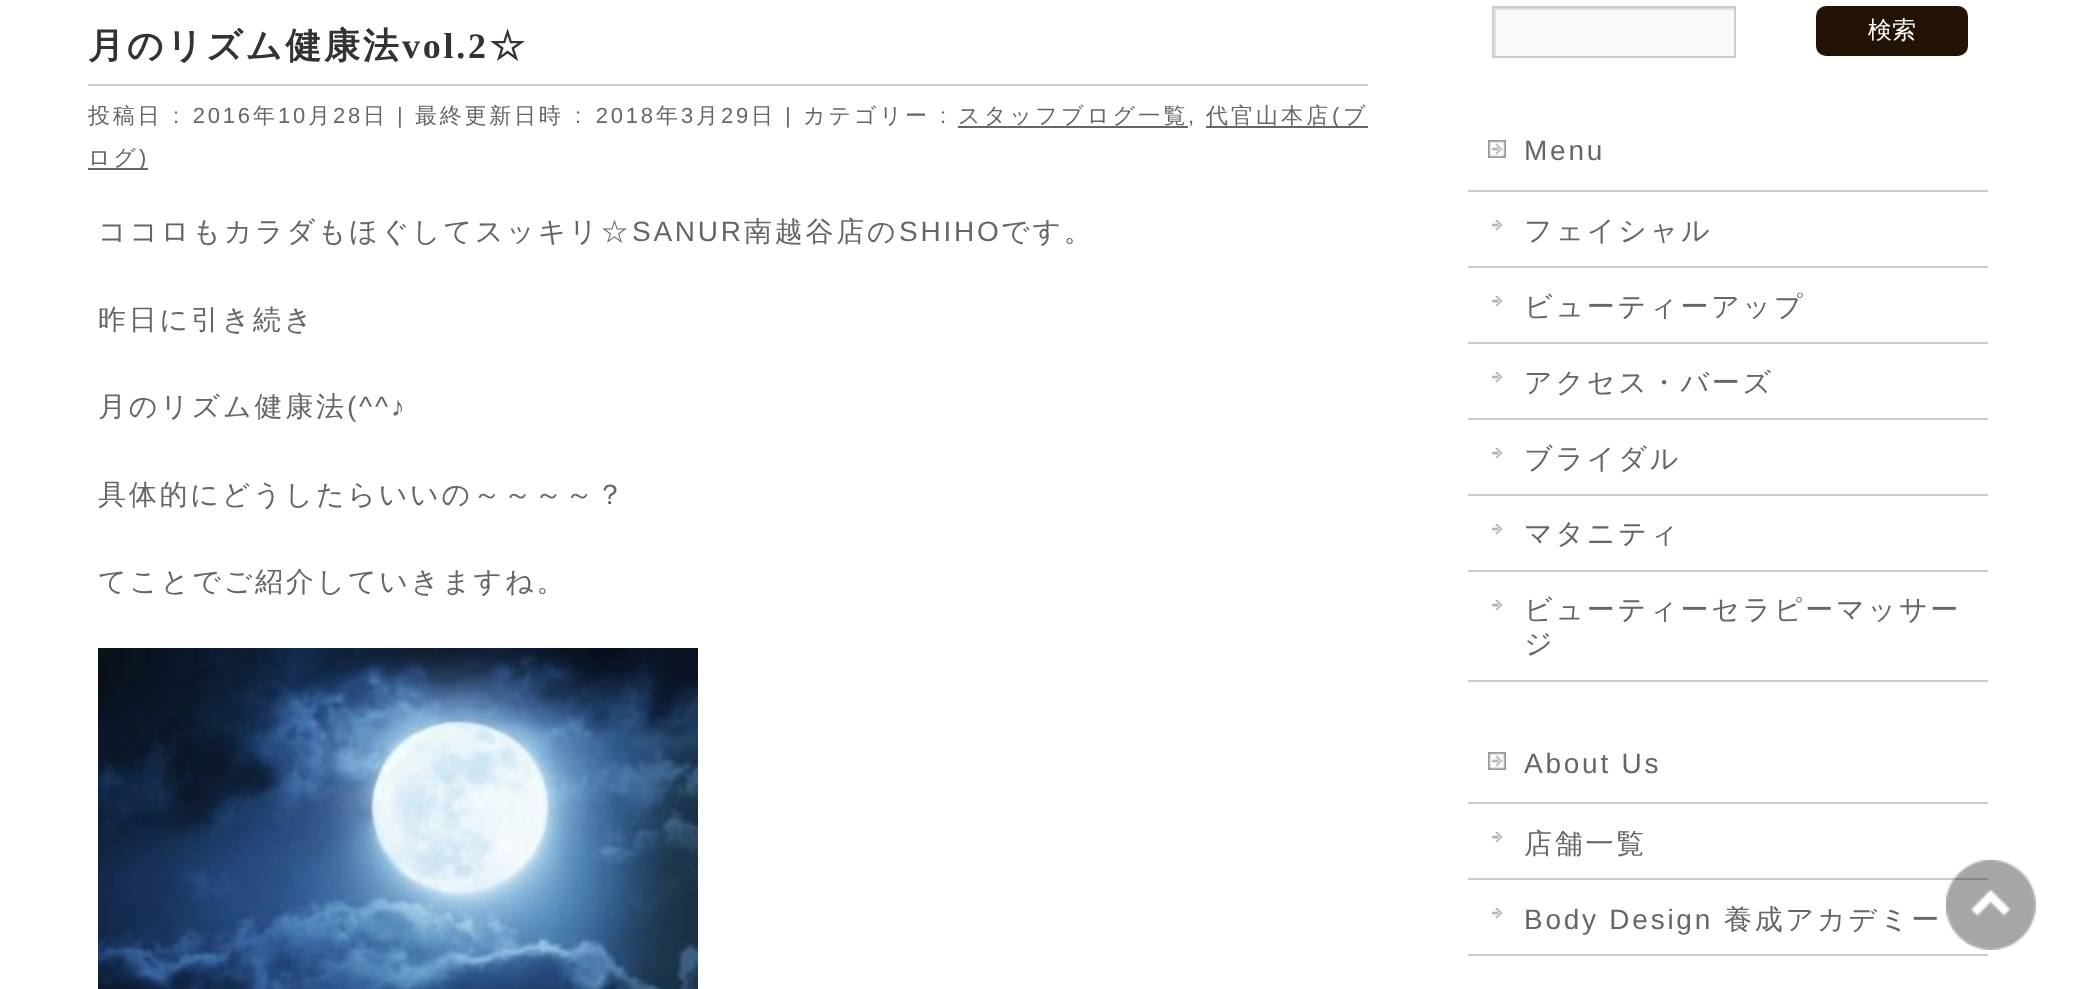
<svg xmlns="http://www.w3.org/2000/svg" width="2075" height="989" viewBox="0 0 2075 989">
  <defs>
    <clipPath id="clip1"><rect x="1494" y="8" width="240" height="48"/></clipPath>
  </defs>
  <rect width="100%" height="100%" fill="rgb(255,255,255)"/>
  <rect x="88" y="84" width="1280" height="2" fill="rgb(204,204,204)"/>
  <text x="88" y="58" font-family="WenQuanYi Zen Hei" font-size="36" font-weight="bold" letter-spacing="2.75" fill="rgb(51,51,51)">月のリズム健康法</text>
  <text x="402" y="58" font-family="Liberation Serif" font-size="36" font-weight="bold" letter-spacing="2.75" fill="rgb(51,51,51)">vol.2</text>
  <text x="489" y="58" font-family="WenQuanYi Zen Hei" font-size="36" font-weight="bold" letter-spacing="2.75" fill="rgb(51,51,51)">☆</text>
  <text x="88" y="123" font-family="WenQuanYi Zen Hei" font-size="22" font-weight="500" letter-spacing="2.75" fill="rgb(102,102,102)">投稿日</text>
  <text x="173" y="123" word-spacing="2" font-family="Liberation Sans" font-size="22" letter-spacing="2.75" fill="rgb(102,102,102)">: 2016</text>
  <text x="253" y="123" font-family="WenQuanYi Zen Hei" font-size="22" font-weight="500" letter-spacing="2.75" fill="rgb(102,102,102)">年</text>
  <text x="278" y="123" font-family="Liberation Sans" font-size="22" letter-spacing="2.75" fill="rgb(102,102,102)">10</text>
  <text x="308" y="123" font-family="WenQuanYi Zen Hei" font-size="22" font-weight="500" letter-spacing="2.75" fill="rgb(102,102,102)">月</text>
  <text x="333" y="123" font-family="Liberation Sans" font-size="22" letter-spacing="2.75" fill="rgb(102,102,102)">28</text>
  <text x="363" y="123" font-family="WenQuanYi Zen Hei" font-size="22" font-weight="500" letter-spacing="2.75" fill="rgb(102,102,102)">日</text>
  <text x="397" y="123" font-family="Liberation Sans" font-size="22" letter-spacing="2.75" fill="rgb(102,102,102)">|</text>
  <text x="415" y="123" font-family="WenQuanYi Zen Hei" font-size="22" font-weight="500" letter-spacing="2.75" fill="rgb(102,102,102)">最終更新日時</text>
  <text x="575" y="123" word-spacing="3" font-family="Liberation Sans" font-size="22" letter-spacing="2.75" fill="rgb(102,102,102)">: 2018</text>
  <text x="656" y="123" font-family="WenQuanYi Zen Hei" font-size="22" font-weight="500" letter-spacing="2.75" fill="rgb(102,102,102)">年</text>
  <text x="681" y="123" font-family="Liberation Sans" font-size="22" letter-spacing="2.75" fill="rgb(102,102,102)">3</text>
  <text x="696" y="123" font-family="WenQuanYi Zen Hei" font-size="22" font-weight="500" letter-spacing="2.75" fill="rgb(102,102,102)">月</text>
  <text x="721" y="123" font-family="Liberation Sans" font-size="22" letter-spacing="2.75" fill="rgb(102,102,102)">29</text>
  <text x="751" y="123" font-family="WenQuanYi Zen Hei" font-size="22" font-weight="500" letter-spacing="2.75" fill="rgb(102,102,102)">日</text>
  <text x="785" y="123" font-family="Liberation Sans" font-size="22" letter-spacing="2.75" fill="rgb(102,102,102)">|</text>
  <text x="803" y="123" font-family="WenQuanYi Zen Hei" font-size="22" font-weight="500" letter-spacing="3" fill="rgb(102,102,102)">カテゴリー</text>
  <text x="940" y="123" font-family="Liberation Sans" font-size="22" letter-spacing="3" fill="rgb(102,102,102)">:</text>
  <rect x="958" y="126" width="230" height="2" fill="rgb(102,102,102)"/>
  <text x="958" y="123" font-family="WenQuanYi Zen Hei" font-size="22" font-weight="500" letter-spacing="3.25" fill="rgb(102,102,102)">スタッフブログ一覧</text>
  <text x="1188" y="123" font-family="Liberation Sans" font-size="22" letter-spacing="2.75" fill="rgb(102,102,102)">,</text>
  <text x="1206" y="123" font-family="WenQuanYi Zen Hei" font-size="22" font-weight="500" letter-spacing="3" fill="rgb(102,102,102)">代官山本店</text>
  <rect x="1206" y="126" width="162" height="2" fill="rgb(102,102,102)"/>
  <text x="1332" y="123" font-family="Liberation Sans" font-size="22" letter-spacing="3" fill="rgb(102,102,102)">(</text>
  <text x="1343" y="123" font-family="WenQuanYi Zen Hei" font-size="22" font-weight="500" letter-spacing="3" fill="rgb(102,102,102)">ブ</text>
  <text x="88" y="165" font-family="WenQuanYi Zen Hei" font-size="22" font-weight="500" letter-spacing="2.75" fill="rgb(102,102,102)">ログ</text>
  <rect x="88" y="168" width="60" height="2" fill="rgb(102,102,102)"/>
  <text x="139" y="165" font-family="Liberation Sans" font-size="22" letter-spacing="2.75" fill="rgb(102,102,102)">)</text>
  <text x="98" y="241" font-family="WenQuanYi Zen Hei" font-size="28" font-weight="500" letter-spacing="2.75" fill="rgb(102,102,102)">ココロもカラダもほぐしてスッキリ☆</text>
  <text x="632" y="241" font-family="Liberation Sans" font-size="28" letter-spacing="2.75" fill="rgb(102,102,102)">SANUR</text>
  <text x="744" y="241" font-family="WenQuanYi Zen Hei" font-size="28" font-weight="500" letter-spacing="2.75" fill="rgb(102,102,102)">南越谷店の</text>
  <text x="899" y="241" font-family="Liberation Sans" font-size="28" letter-spacing="2.75" fill="rgb(102,102,102)">SHIHO</text>
  <g font-family="WenQuanYi Zen Hei" font-size="28" font-weight="500" letter-spacing="2.75" fill="rgb(102,102,102)">
    <text x="1001" y="241">です。</text>
    <text x="98" y="329">昨日に引き続き</text>
    <text x="98" y="416">月のリズム健康法</text>
  </g>
  <text x="347" y="416" font-family="Liberation Sans" font-size="28" letter-spacing="2.75" fill="rgb(102,102,102)">(^^♪</text>
  <g font-family="WenQuanYi Zen Hei" font-size="28" font-weight="500" letter-spacing="2.75" fill="rgb(102,102,102)">
    <text x="98" y="504">具体的にどうしたらいいの～～～～？</text>
    <text x="98" y="591">てことでご紹介していきますね。</text>
  </g>
  <image x="98" y="648" width="600" height="341" href="pic1.png"/>
  <rect x="1496" y="10" width="238" height="46" fill="rgb(249,249,249)"/>
  <g clip-path="url(#clip1)">
    <path d="M1296-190H1932V254H1296ZM1496 10H1736V58H1496Z" fill="rgb(224,224,224)" fill-rule="evenodd"/>
  </g>
  <rect x="1493" y="7" width="242" height="50" fill="none" stroke="rgb(204,204,204)" stroke-width="2"/>
  <rect x="1816" y="6" width="152" height="50" rx="10" fill="rgb(35,19,5)"/>
  <text x="1868" y="38" font-family="WenQuanYi Zen Hei" font-size="24" font-weight="500" fill="rgb(255,255,255)">検索</text>
  <rect x="1468" y="680" width="520" height="2" fill="rgb(204,204,204)"/>
  <image x="1488" y="140" width="18" height="18" href="pic2.png"/>
  <text x="1524" y="160" font-family="Liberation Sans" font-size="28" letter-spacing="2.75" fill="rgb(102,102,102)">Menu</text>
  <rect x="1468" y="190" width="520" height="2" fill="rgb(204,204,204)"/>
  <image x="1492" y="220" width="10" height="10" href="pic3.png"/>
  <text x="1524" y="240" font-family="WenQuanYi Zen Hei" font-size="28" font-weight="500" letter-spacing="2.75" fill="rgb(102,102,102)">フェイシャル</text>
  <rect x="1468" y="266" width="520" height="2" fill="rgb(204,204,204)"/>
  <image x="1492" y="296" width="10" height="10" href="pic3.png"/>
  <text x="1524" y="316" font-family="WenQuanYi Zen Hei" font-size="28" font-weight="500" letter-spacing="2.75" fill="rgb(102,102,102)">ビューティーアップ</text>
  <rect x="1468" y="342" width="520" height="2" fill="rgb(204,204,204)"/>
  <image x="1492" y="372" width="10" height="10" href="pic3.png"/>
  <text x="1524" y="392" font-family="WenQuanYi Zen Hei" font-size="28" font-weight="500" letter-spacing="2.75" fill="rgb(102,102,102)">アクセス・バーズ</text>
  <rect x="1468" y="418" width="520" height="2" fill="rgb(204,204,204)"/>
  <image x="1492" y="448" width="10" height="10" href="pic3.png"/>
  <text x="1524" y="468" font-family="WenQuanYi Zen Hei" font-size="28" font-weight="500" letter-spacing="2.75" fill="rgb(102,102,102)">ブライダル</text>
  <rect x="1468" y="494" width="520" height="2" fill="rgb(204,204,204)"/>
  <image x="1492" y="524" width="10" height="10" href="pic3.png"/>
  <text x="1524" y="543" font-family="WenQuanYi Zen Hei" font-size="28" font-weight="500" letter-spacing="2.75" fill="rgb(102,102,102)">マタニティ</text>
  <rect x="1468" y="570" width="520" height="2" fill="rgb(204,204,204)"/>
  <image x="1492" y="600" width="10" height="10" href="pic3.png"/>
  <g font-family="WenQuanYi Zen Hei" font-size="28" font-weight="500" letter-spacing="2.75" fill="rgb(102,102,102)">
    <text>
      <tspan x="1524" y="619">ビューティーセラピーマッサー</tspan>
      <tspan x="1524" y="653">ジ</tspan>
    </text>
  </g>
  <rect x="1468" y="954" width="520" height="2" fill="rgb(204,204,204)"/>
  <image x="1488" y="752" width="18" height="18" href="pic2.png"/>
  <text x="1524" y="773" font-family="Liberation Sans" font-size="28" letter-spacing="2.75" fill="rgb(102,102,102)">About Us</text>
  <rect x="1468" y="802" width="520" height="2" fill="rgb(204,204,204)"/>
  <image x="1492" y="832" width="10" height="10" href="pic3.png"/>
  <text x="1524" y="853" font-family="WenQuanYi Zen Hei" font-size="28" font-weight="500" letter-spacing="2.75" fill="rgb(102,102,102)">店舗一覧</text>
  <rect x="1468" y="878" width="520" height="2" fill="rgb(204,204,204)"/>
  <image x="1492" y="908" width="10" height="10" href="pic3.png"/>
  <text x="1524" y="929" font-family="Liberation Sans" font-size="28" letter-spacing="2.75" fill="rgb(102,102,102)">Body Design</text>
  <text x="1724" y="929" font-family="WenQuanYi Zen Hei" font-size="28" font-weight="500" letter-spacing="2.75" fill="rgb(102,102,102)">養成アカデミー</text>
  <image x="1946" y="860" width="90" height="90" href="pic4.png"/>
</svg>
